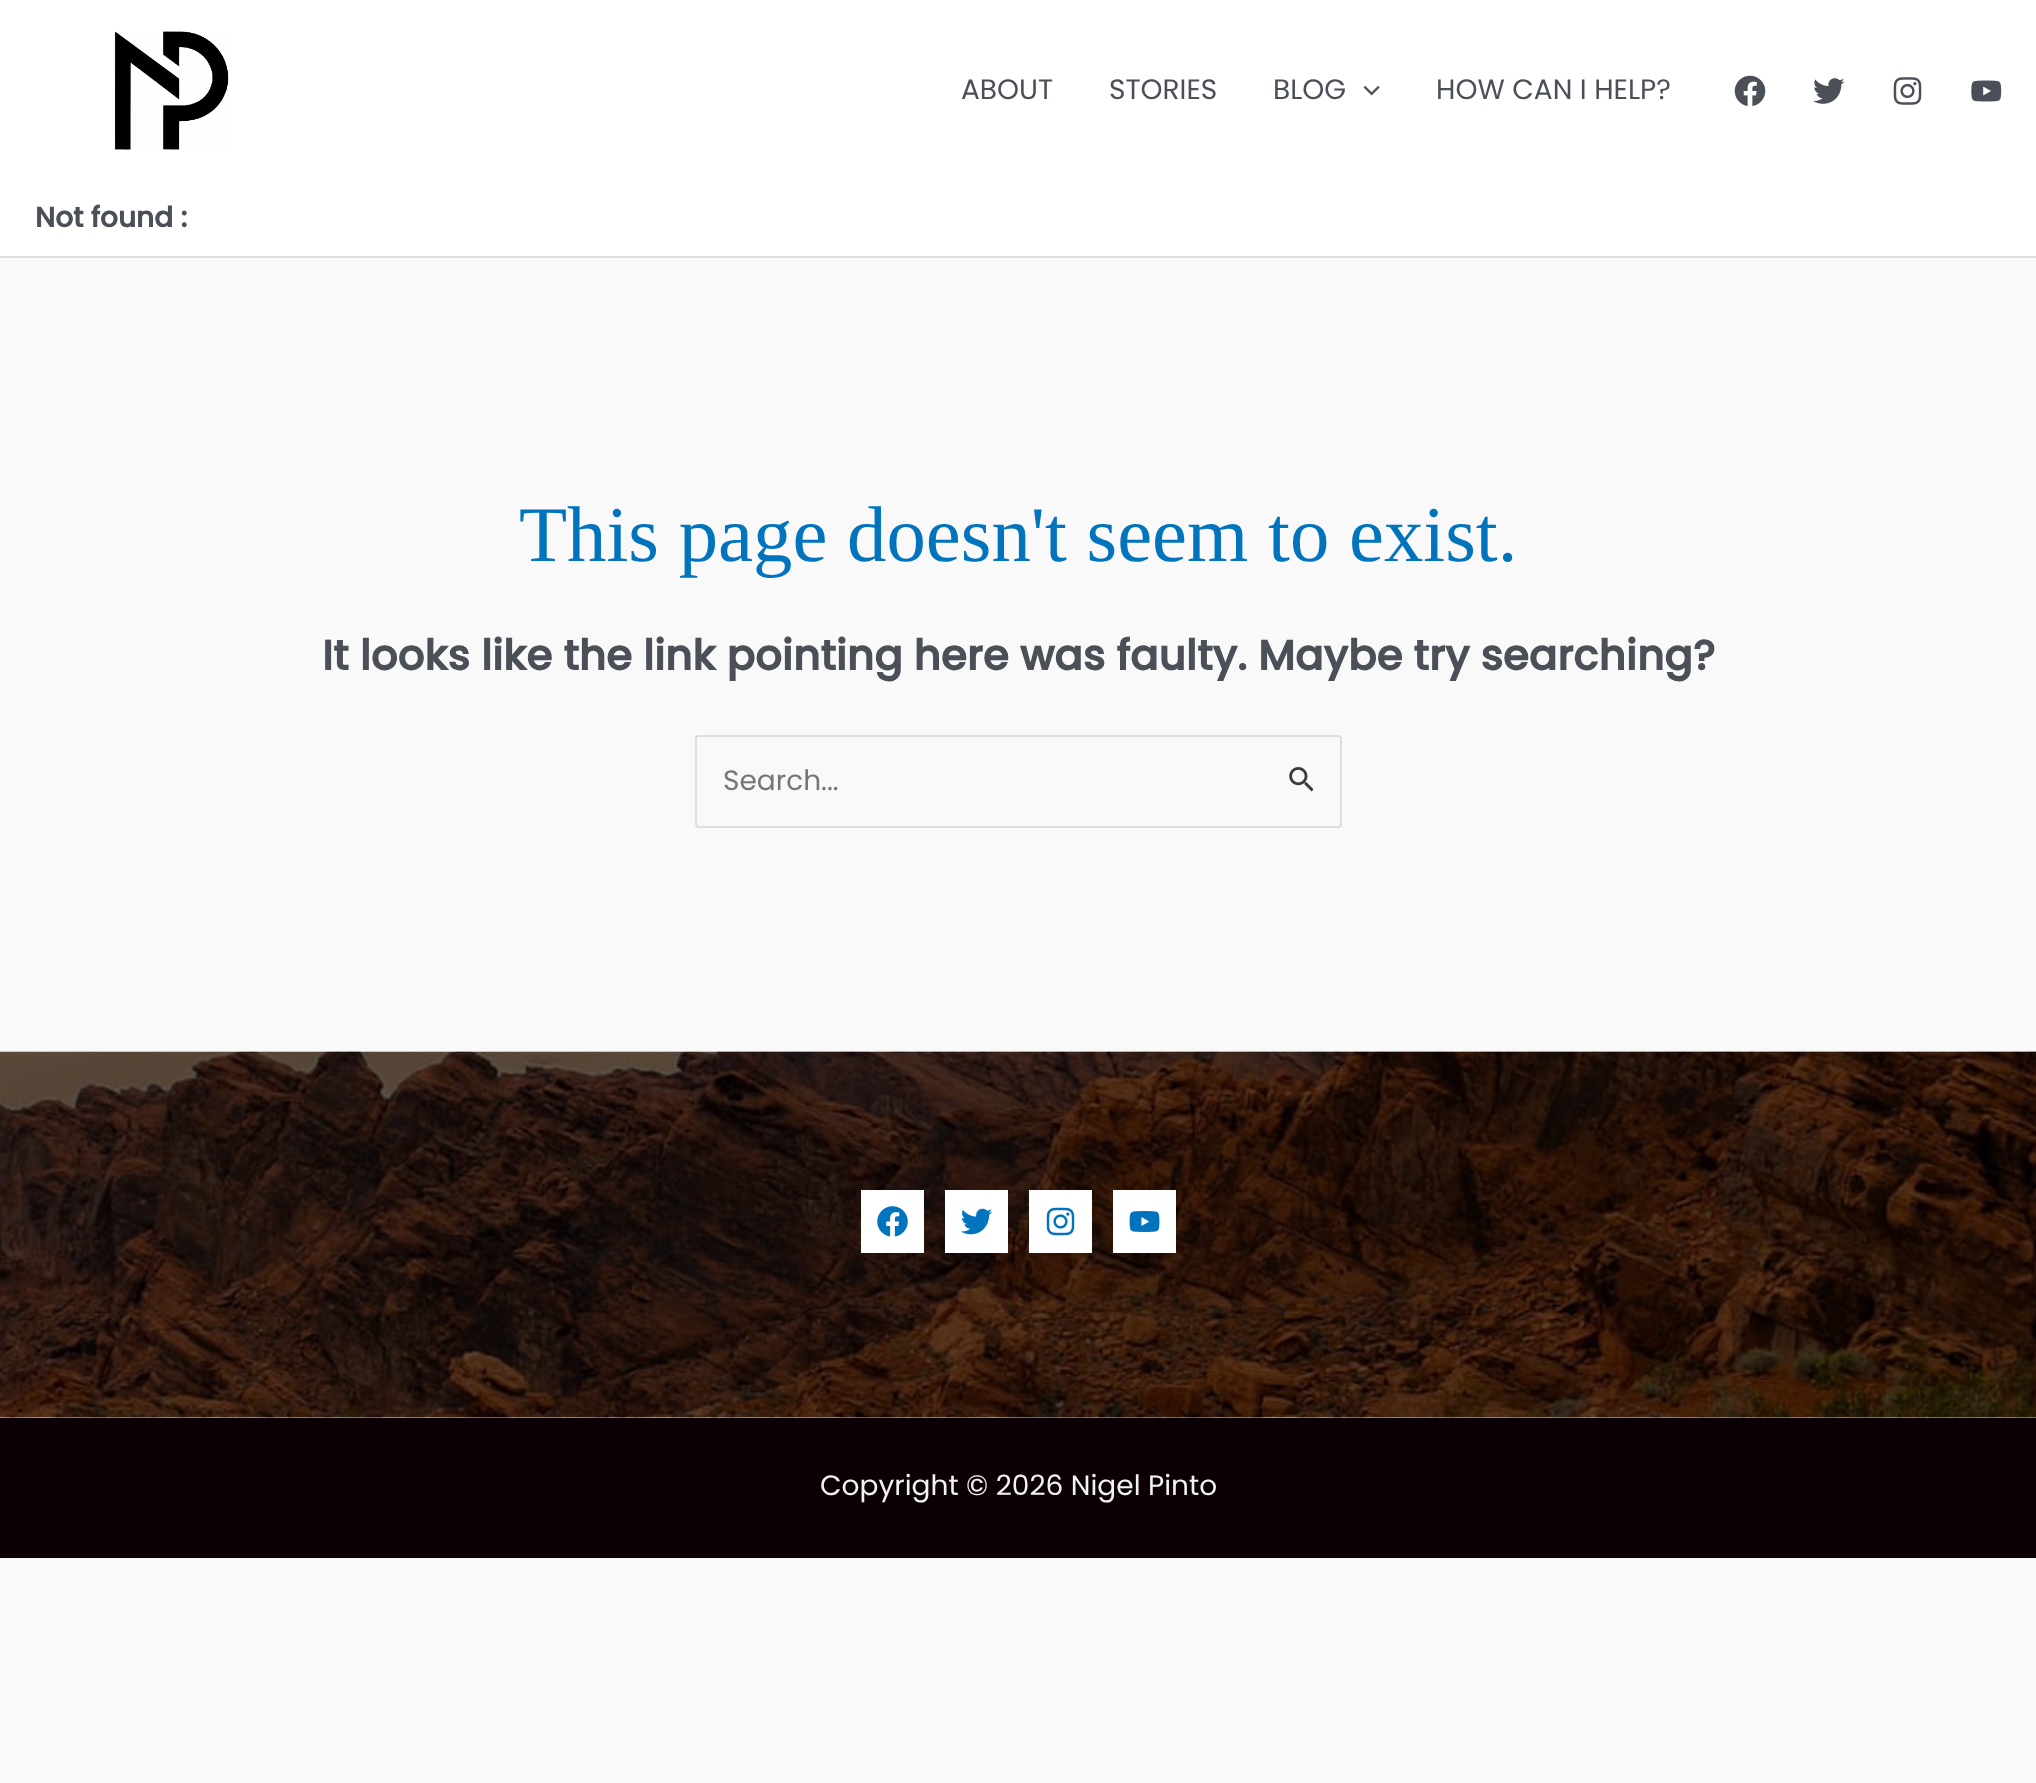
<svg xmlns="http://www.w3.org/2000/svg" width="2036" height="1783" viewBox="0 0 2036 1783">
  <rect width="100%" height="100%" fill="rgb(249,249,249)"/>
  <rect x="0" y="0" width="2036" height="256" fill="rgb(255,255,255)"/>
  <image x="114" y="31" width="115" height="119" href="pic1.png"/>
  <g font-family="Poppins" font-size="28" fill="rgb(75,79,88)">
    <text x="961" y="99">ABOUT</text>
    <text x="1109" y="99">STORIES</text>
    <text x="1273" y="99">BLOG</text>
  </g>
  <image x="1363" y="85" width="17" height="11" href="pic2.png"/>
  <text x="1436" y="99" font-family="Poppins" font-size="28" fill="rgb(75,79,88)">HOW CAN I HELP?</text>
  <image x="1734" y="75" width="32" height="31" href="pic3.png"/>
  <image x="1813" y="78" width="32" height="26" href="pic4.png"/>
  <image x="1893" y="77" width="29" height="28" href="pic5.png"/>
  <image x="1971" y="80" width="31" height="22" href="pic6.png"/>
  <rect x="0" y="256" width="2036" height="2" fill="rgb(221,221,221)"/>
  <text x="35" y="227" font-family="Poppins" font-size="28" font-weight="bold" fill="rgb(75,79,88)">Not found :</text>
  <text x="519" y="561" font-family="Liberation Serif" font-size="78.75" fill="rgb(2,116,190)">This page doesn't seem to exist.</text>
  <text x="322" y="670" font-family="Poppins" font-size="42" font-weight="bold" fill="rgb(75,79,88)">It looks like the link pointing here was faulty. Maybe try searching?</text>
  <rect x="696" y="736" width="645" height="91" rx="3" fill="none" stroke="rgb(221,221,221)" stroke-width="2"/>
  <text x="723" y="790" font-family="Poppins" font-size="28" fill="rgb(117,117,117)">Search...</text>
  <image x="1289" y="767" width="24" height="25" href="pic7.png"/>
  <image x="0" y="1051" width="2036" height="367" href="pic8.png"/>
  <rect x="861" y="1190" width="63" height="63" fill="rgb(255,255,255)"/>
  <image x="877" y="1206" width="31" height="31" href="pic9.png"/>
  <rect x="945" y="1190" width="63" height="63" fill="rgb(255,255,255)"/>
  <image x="961" y="1208" width="31" height="27" href="pic10.png"/>
  <rect x="1029" y="1190" width="63" height="63" fill="rgb(255,255,255)"/>
  <image x="1046" y="1207" width="29" height="29" href="pic11.png"/>
  <rect x="1113" y="1190" width="63" height="63" fill="rgb(255,255,255)"/>
  <image x="1129" y="1211" width="31" height="21" href="pic12.png"/>
  <rect x="0" y="1418" width="2036" height="140" fill="rgb(10,0,5)"/>
  <text x="820" y="1495" font-family="Poppins" font-size="28" fill="rgb(243,243,243)">Copyright © 2026 Nigel Pinto</text>
</svg>
